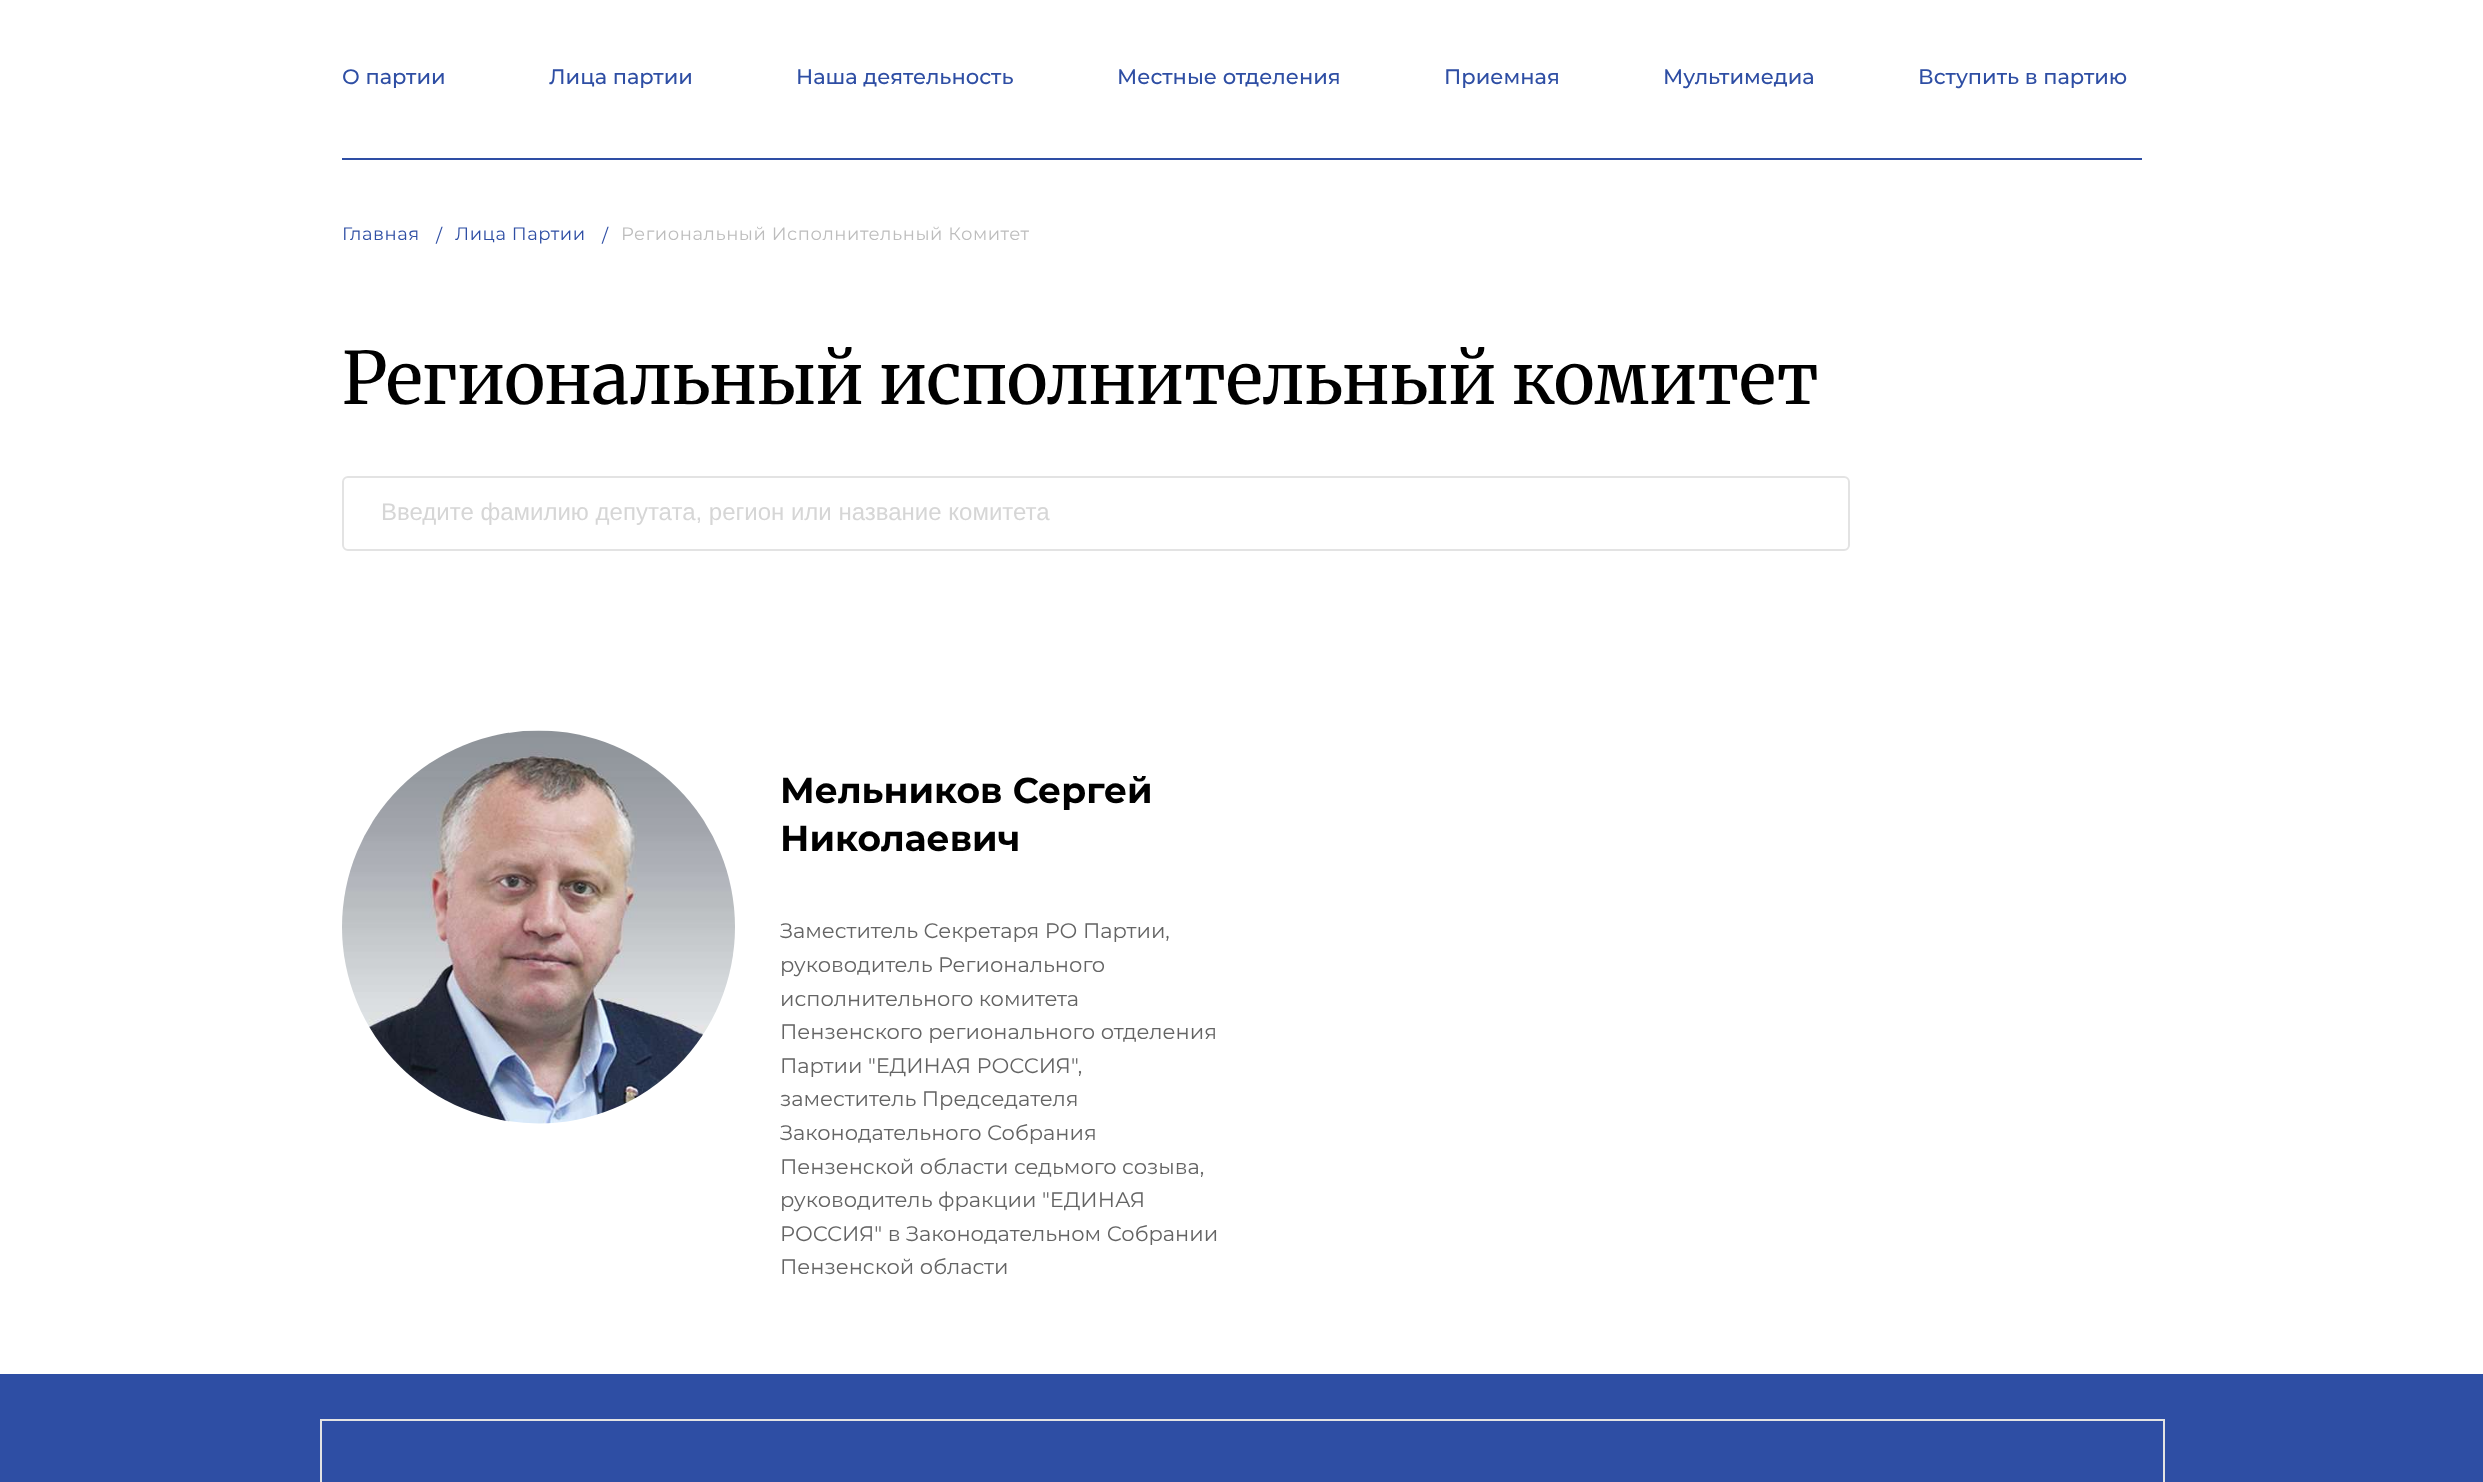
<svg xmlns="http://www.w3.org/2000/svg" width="2483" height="1482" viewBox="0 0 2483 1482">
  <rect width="100%" height="100%" fill="rgb(255,255,255)"/>
  <rect x="342" y="158" width="1800" height="2" fill="rgb(46,78,164)"/>
  <g font-family="Montserrat" font-size="21" font-weight="500" fill="rgb(46,78,164)">
    <text x="342" y="84">О партии</text>
    <text x="549" y="84">Лица партии</text>
    <text x="796" y="84">Наша деятельность</text>
    <text x="1117" y="84">Местные отделения</text>
    <text x="1444" y="84">Приемная</text>
    <text x="1663" y="84">Мультимедиа</text>
    <text x="1918" y="84">Вступить в партию</text>
  </g>
  <g font-family="Montserrat" font-size="18" letter-spacing="0.55" fill="rgb(46,78,164)">
    <text x="342" y="240">Главная</text>
    <text x="436" y="242">/</text>
    <text x="455" y="240">Лица Партии</text>
    <text x="602" y="242">/</text>
  </g>
  <text x="621" y="240" font-family="Montserrat" font-size="18" letter-spacing="0.55" fill="rgb(189,189,189)">Региональный Исполнительный Комитет</text>
  <text x="342" y="404" font-family="Merriweather" font-size="72" fill="rgb(0,0,0)">Региональный исполнительный комитет</text>
  <rect x="343" y="477" width="1506" height="73" rx="5" fill="none" stroke="rgb(227,227,227)" stroke-width="2"/>
  <text x="381" y="520" font-family="Liberation Sans" font-size="24" fill="rgb(214,214,214)">Введите фамилию депутата, регион или название комитета</text>
  <image x="342" y="730" width="393" height="394" href="pic1.png"/>
  <g font-family="Montserrat" font-size="36" font-weight="bold" fill="rgb(0,0,0)">
    <text>
      <tspan x="780" y="803">Мельников Сергей</tspan>
      <tspan x="780" y="851">Николаевич</tspan>
    </text>
  </g>
  <g font-family="Montserrat" font-size="21" fill="rgb(100,100,100)">
    <text>
      <tspan x="780" y="938">Заместитель Секретаря РО Партии,</tspan>
      <tspan x="780" y="972">руководитель Регионального</tspan>
      <tspan x="780" y="1006">исполнительного комитета</tspan>
      <tspan x="780" y="1039">Пензенского регионального отделения</tspan>
      <tspan x="780" y="1073">Партии "ЕДИНАЯ РОССИЯ",</tspan>
      <tspan x="780" y="1106">заместитель Председателя</tspan>
      <tspan x="780" y="1140">Законодательного Собрания</tspan>
      <tspan x="780" y="1174">Пензенской области седьмого созыва,</tspan>
      <tspan x="780" y="1207">руководитель фракции "ЕДИНАЯ</tspan>
      <tspan x="780" y="1241">РОССИЯ" в Законодательном Собрании</tspan>
      <tspan x="780" y="1274">Пензенской области</tspan>
    </text>
  </g>
  <rect x="0" y="1374" width="2483" height="108" fill="rgb(46,78,164)"/>
  <rect x="321" y="1420" width="1843" height="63" fill="none" stroke="rgb(227,227,227)" stroke-width="2"/>
</svg>
